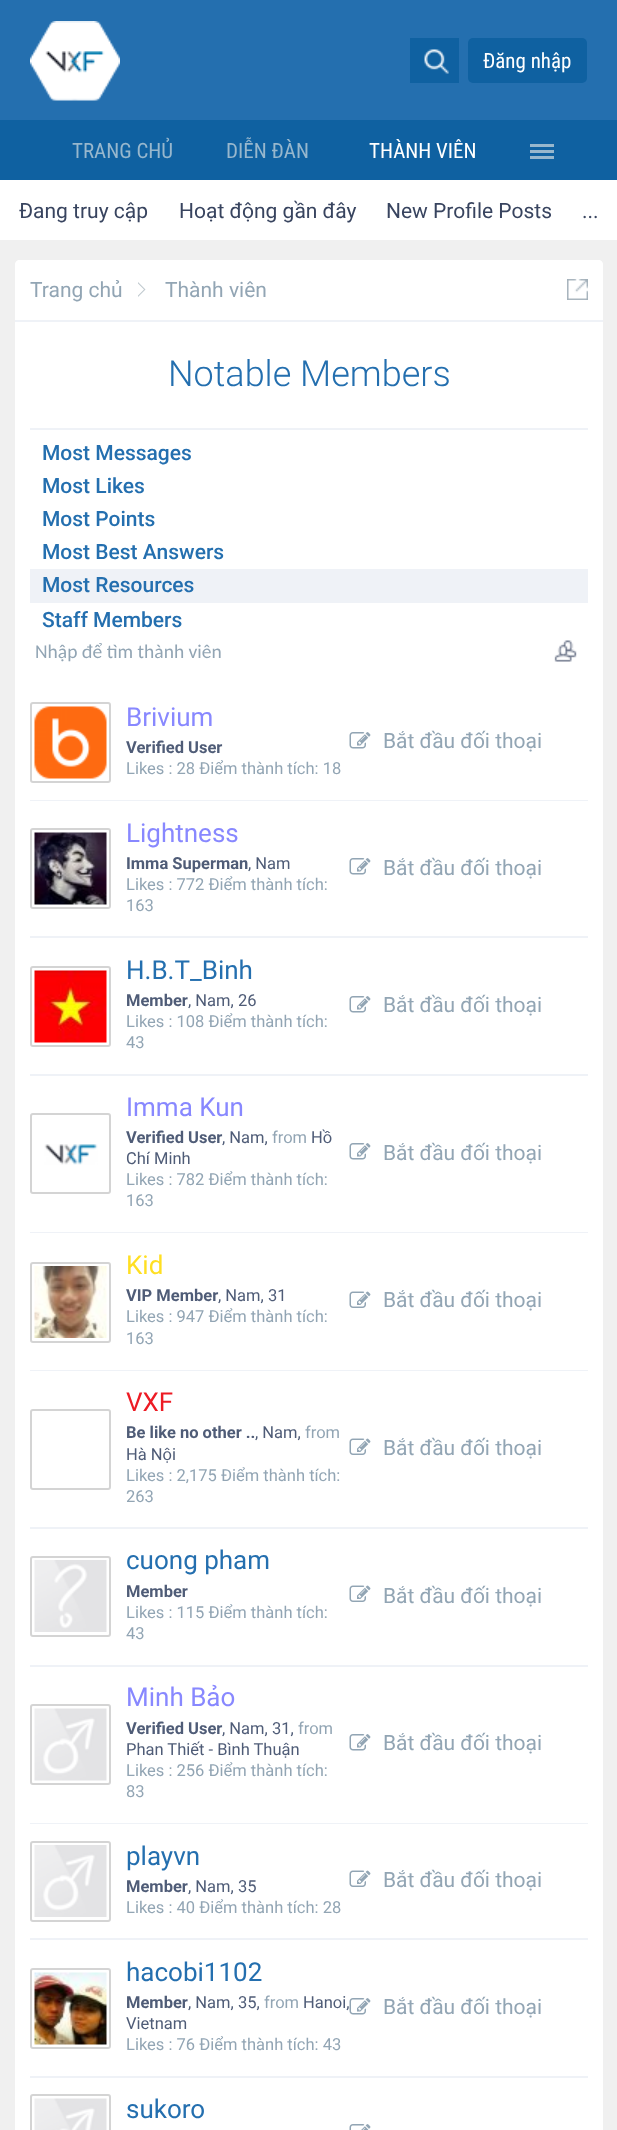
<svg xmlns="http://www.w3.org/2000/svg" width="617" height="2130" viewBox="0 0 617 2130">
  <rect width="100%" height="100%" fill="rgb(240,240,240)"/>
  <rect x="0" y="0" width="617" height="120" fill="rgb(36,111,175)"/>
  <image x="30" y="21" width="90" height="80" href="pic1.png"/>
  <rect x="410" y="38" width="49" height="45" fill="rgb(15,97,161)"/>
  <image x="424" y="49" width="25" height="25" href="pic2.png"/>
  <rect x="468" y="38" width="119" height="45" rx="5" fill="rgb(15,97,161)"/>
  <text x="483" y="68" font-family="Roboto Condensed" font-size="21" fill="rgb(255,255,255)">Đăng nhập</text>
  <rect x="0" y="120" width="617" height="60" fill="rgb(15,97,161)"/>
  <g font-family="Roboto Condensed" font-size="21" fill="rgb(151,183,205)">
    <text x="72" y="158">TRANG CHỦ</text>
    <text x="226" y="158">DIỄN ĐÀN</text>
  </g>
  <text x="369" y="158" font-family="Roboto Condensed" font-size="21" fill="rgb(255,255,255)">THÀNH VIÊN</text>
  <rect x="0" y="180" width="617" height="60" fill="rgb(255,255,255)"/>
  <g font-family="Roboto" font-size="21" fill="rgb(56,68,95)">
    <text x="19" y="218">Đang truy cập</text>
    <text x="179" y="218">Hoạt động gần đây</text>
    <text x="386" y="218">New Profile Posts</text>
    <text x="582" y="218">...</text>
  </g>
  <rect x="530" y="144" width="24" height="3" fill="rgb(151,183,205)"/>
  <rect x="530" y="150" width="24" height="3" fill="rgb(151,183,205)"/>
  <rect x="530" y="156" width="24" height="3" fill="rgb(151,183,205)"/>
  <rect x="15" y="260" width="588" height="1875" rx="5" fill="rgb(255,255,255)"/>
  <rect x="15" y="320" width="588" height="2" fill="rgb(239,242,247)"/>
  <path d="M20 260H598C601 260 603 262 603 265V320H15V265C15 262 17 260 20 260Z" fill="rgb(255,255,255)"/>
  <text x="30" y="297" font-family="Roboto" font-size="21" fill="rgb(146,165,180)">Trang chủ</text>
  <path d="M138 297V282L145.5 289.5Z" fill="rgb(192,201,207)"/>
  <path d="M136.5 297V282L144 289.5Z" fill="rgb(255,255,255)"/>
  <text x="165" y="297" font-family="Roboto" font-size="21" fill="rgb(146,165,180)">Thành viên</text>
  <image x="567" y="279" width="21" height="21" href="pic3.png"/>
  <rect x="30" y="428" width="558" height="2" fill="rgb(239,242,247)"/>
  <text x="168" y="386" font-family="Roboto" font-size="36" font-weight="300" fill="rgb(36,111,175)">Notable Members</text>
  <g font-family="Roboto" font-size="21" font-weight="500" fill="rgb(36,111,175)">
    <text>
      <tspan x="42" y="460">Most Messages</tspan>
      <tspan x="42" y="493">Most Likes</tspan>
      <tspan x="42" y="526">Most Points</tspan>
      <tspan x="42" y="559">Most Best Answers</tspan>
    </text>
  </g>
  <rect x="30" y="569" width="558" height="34" fill="rgb(239,242,247)"/>
  <g font-family="Roboto" font-size="21" font-weight="500" fill="rgb(36,111,175)">
    <text>
      <tspan x="42" y="592">Most Resources</tspan>
      <tspan x="42" y="627">Staff Members</tspan>
    </text>
  </g>
  <image x="554" y="640" width="23" height="22" href="pic4.png"/>
  <text x="35" y="658" font-family="Carlito" font-size="19.5" fill="rgb(146,165,180)">Nhập để tìm thành viên</text>
  <rect x="30" y="800" width="558" height="1" fill="rgb(239,242,247)"/>
  <image x="34" y="706" width="73" height="73" href="pic5.png"/>
  <rect x="31" y="703" width="79" height="79" rx="2" fill="none" stroke="rgb(212,212,212)" stroke-width="2"/>
  <text x="126" y="726" font-family="Roboto" font-size="26" fill="rgb(136,136,255)">Brivium</text>
  <text x="126" y="753" font-family="Roboto" font-size="16.5" font-weight="bold" fill="rgb(79,92,119)">Verified User</text>
  <text x="126" y="774" font-family="Roboto" font-size="16.5" fill="rgb(146,165,180)">Likes : 28 Điểm thành tích: 18</text>
  <image x="349" y="732" width="22" height="17" href="pic6.png"/>
  <text x="383" y="748" font-family="Roboto" font-size="21" fill="rgb(146,165,180)">Bắt đầu đối thoại</text>
  <rect x="30" y="936" width="558" height="2" fill="rgb(239,242,247)"/>
  <image x="34" y="832" width="73" height="73" href="pic7.png"/>
  <rect x="31" y="829" width="79" height="79" rx="2" fill="none" stroke="rgb(212,212,212)" stroke-width="2"/>
  <text x="126" y="842" font-family="Roboto" font-size="26" fill="rgb(136,136,255)">Lightness</text>
  <text x="126" y="869" font-family="Roboto" font-size="16.5" font-weight="bold" fill="rgb(79,92,119)">Imma Superman</text>
  <text x="248" y="869" font-family="Roboto" font-size="16.5" fill="rgb(79,92,119)">, Nam</text>
  <g font-family="Roboto" font-size="16.5" fill="rgb(146,165,180)">
    <text>
      <tspan x="126" y="890">Likes : 772 Điểm thành tích:</tspan>
      <tspan x="126" y="911">163</tspan>
    </text>
  </g>
  <image x="349" y="858" width="22" height="17" href="pic6.png"/>
  <text x="383" y="875" font-family="Roboto" font-size="21" fill="rgb(146,165,180)">Bắt đầu đối thoại</text>
  <rect x="30" y="1074" width="558" height="2" fill="rgb(239,242,247)"/>
  <image x="34" y="970" width="73" height="73" href="pic8.png"/>
  <rect x="31" y="967" width="79" height="79" rx="2" fill="none" stroke="rgb(212,212,212)" stroke-width="2"/>
  <text x="126" y="979" font-family="Roboto" font-size="26" fill="rgb(36,111,175)">H.B.T_Binh</text>
  <text x="126" y="1006" font-family="Roboto" font-size="16.5" font-weight="bold" fill="rgb(79,92,119)">Member</text>
  <text x="188" y="1006" font-family="Roboto" font-size="16.5" fill="rgb(79,92,119)">, Nam, 26</text>
  <g font-family="Roboto" font-size="16.5" fill="rgb(146,165,180)">
    <text>
      <tspan x="126" y="1027">Likes : 108 Điểm thành tích:</tspan>
      <tspan x="126" y="1048">43</tspan>
    </text>
  </g>
  <image x="349" y="996" width="22" height="17" href="pic6.png"/>
  <text x="383" y="1012" font-family="Roboto" font-size="21" fill="rgb(146,165,180)">Bắt đầu đối thoại</text>
  <rect x="30" y="1232" width="558" height="1" fill="rgb(239,242,247)"/>
  <image x="44" y="1144" width="54" height="21" href="pic9.png"/>
  <rect x="31" y="1114" width="79" height="79" rx="2" fill="none" stroke="rgb(212,212,212)" stroke-width="2"/>
  <text x="126" y="1116" font-family="Roboto" font-size="26" fill="rgb(136,136,255)">Imma Kun</text>
  <text x="126" y="1143" font-family="Roboto" font-size="16.5" font-weight="bold" fill="rgb(79,92,119)">Verified User</text>
  <text x="222" y="1143" font-family="Roboto" font-size="16.5" fill="rgb(79,92,119)">, Nam,</text>
  <text x="272" y="1143" font-family="Roboto" font-size="16.5" fill="rgb(146,165,180)">from</text>
  <g font-family="Roboto" font-size="16.5" fill="rgb(79,92,119)">
    <text x="311" y="1143">Hồ</text>
    <text x="126" y="1164">Chí Minh</text>
  </g>
  <g font-family="Roboto" font-size="16.5" fill="rgb(146,165,180)">
    <text>
      <tspan x="126" y="1185">Likes : 782 Điểm thành tích:</tspan>
      <tspan x="126" y="1206">163</tspan>
    </text>
  </g>
  <image x="349" y="1143" width="22" height="17" href="pic6.png"/>
  <text x="383" y="1160" font-family="Roboto" font-size="21" fill="rgb(146,165,180)">Bắt đầu đối thoại</text>
  <rect x="30" y="1370" width="558" height="1" fill="rgb(239,242,247)"/>
  <image x="34" y="1266" width="73" height="72" href="pic10.png"/>
  <rect x="31" y="1263" width="79" height="79" rx="2" fill="none" stroke="rgb(212,212,212)" stroke-width="2"/>
  <text x="126" y="1274" font-family="Roboto" font-size="26" fill="rgb(255,223,34)">Kid</text>
  <text x="126" y="1301" font-family="Roboto" font-size="16.5" font-weight="bold" fill="rgb(79,92,119)">VIP Member</text>
  <text x="218" y="1301" font-family="Roboto" font-size="16.5" fill="rgb(79,92,119)">, Nam, 31</text>
  <g font-family="Roboto" font-size="16.5" fill="rgb(146,165,180)">
    <text>
      <tspan x="126" y="1322">Likes : 947 Điểm thành tích:</tspan>
      <tspan x="126" y="1344">163</tspan>
    </text>
  </g>
  <image x="349" y="1291" width="22" height="17" href="pic11.png"/>
  <text x="383" y="1307" font-family="Roboto" font-size="21" fill="rgb(146,165,180)">Bắt đầu đối thoại</text>
  <rect x="30" y="1527" width="558" height="2" fill="rgb(239,242,247)"/>
  <rect x="31" y="1410" width="79" height="79" rx="2" fill="none" stroke="rgb(212,212,212)" stroke-width="2"/>
  <text x="126" y="1411" font-family="Roboto" font-size="26" fill="rgb(237,27,36)">VXF</text>
  <text x="126" y="1438" font-family="Roboto" font-size="16.5" font-weight="bold" fill="rgb(79,92,119)">Be like no other ..</text>
  <text x="255" y="1438" font-family="Roboto" font-size="16.5" fill="rgb(79,92,119)">, Nam,</text>
  <text x="305" y="1438" font-family="Roboto" font-size="16.5" fill="rgb(146,165,180)">from</text>
  <text x="126" y="1460" font-family="Roboto" font-size="16.5" fill="rgb(79,92,119)">Hà Nội</text>
  <g font-family="Roboto" font-size="16.5" fill="rgb(146,165,180)">
    <text>
      <tspan x="126" y="1481">Likes : 2,175 Điểm thành tích:</tspan>
      <tspan x="126" y="1502">263</tspan>
    </text>
  </g>
  <image x="349" y="1438" width="22" height="17" href="pic11.png"/>
  <text x="383" y="1455" font-family="Roboto" font-size="21" fill="rgb(146,165,180)">Bắt đầu đối thoại</text>
  <rect x="30" y="1665" width="558" height="2" fill="rgb(239,242,247)"/>
  <image x="34" y="1560" width="73" height="72" href="pic12.png"/>
  <rect x="31" y="1557" width="79" height="79" rx="2" fill="none" stroke="rgb(212,212,212)" stroke-width="2"/>
  <text x="126" y="1569" font-family="Roboto" font-size="26" fill="rgb(36,111,175)">cuong pham</text>
  <text x="126" y="1597" font-family="Roboto" font-size="16.5" font-weight="bold" fill="rgb(79,92,119)">Member</text>
  <g font-family="Roboto" font-size="16.5" fill="rgb(146,165,180)">
    <text>
      <tspan x="126" y="1618">Likes : 115 Điểm thành tích:</tspan>
      <tspan x="126" y="1639">43</tspan>
    </text>
  </g>
  <image x="349" y="1585" width="22" height="17" href="pic11.png"/>
  <text x="383" y="1603" font-family="Roboto" font-size="21" fill="rgb(146,165,180)">Bắt đầu đối thoại</text>
  <rect x="30" y="1823" width="558" height="1" fill="rgb(239,242,247)"/>
  <image x="34" y="1708" width="73" height="73" href="pic13.png"/>
  <rect x="31" y="1705" width="79" height="79" rx="2" fill="none" stroke="rgb(212,212,212)" stroke-width="2"/>
  <text x="126" y="1706" font-family="Roboto" font-size="26" fill="rgb(136,136,255)">Minh Bảo</text>
  <text x="126" y="1734" font-family="Roboto" font-size="16.5" font-weight="bold" fill="rgb(79,92,119)">Verified User</text>
  <text x="222" y="1734" font-family="Roboto" font-size="16.5" fill="rgb(79,92,119)">, Nam, 31,</text>
  <text x="298" y="1734" font-family="Roboto" font-size="16.5" fill="rgb(146,165,180)">from</text>
  <text x="126" y="1755" font-family="Roboto" font-size="16.5" fill="rgb(79,92,119)">Phan Thiết - Bình Thuận</text>
  <g font-family="Roboto" font-size="16.5" fill="rgb(146,165,180)">
    <text>
      <tspan x="126" y="1776">Likes : 256 Điểm thành tích:</tspan>
      <tspan x="126" y="1797">83</tspan>
    </text>
  </g>
  <image x="349" y="1734" width="22" height="17" href="pic6.png"/>
  <text x="383" y="1750" font-family="Roboto" font-size="21" fill="rgb(146,165,180)">Bắt đầu đối thoại</text>
  <rect x="30" y="1938" width="558" height="2" fill="rgb(239,242,247)"/>
  <image x="34" y="1845" width="73" height="72" href="pic14.png"/>
  <rect x="31" y="1842" width="79" height="79" rx="2" fill="none" stroke="rgb(212,212,212)" stroke-width="2"/>
  <text x="126" y="1865" font-family="Roboto" font-size="26" fill="rgb(36,111,175)">playvn</text>
  <text x="126" y="1892" font-family="Roboto" font-size="16.5" font-weight="bold" fill="rgb(79,92,119)">Member</text>
  <text x="188" y="1892" font-family="Roboto" font-size="16.5" fill="rgb(79,92,119)">, Nam, 35</text>
  <text x="126" y="1913" font-family="Roboto" font-size="16.5" fill="rgb(146,165,180)">Likes : 40 Điểm thành tích: 28</text>
  <image x="349" y="1870" width="22" height="17" href="pic11.png"/>
  <text x="383" y="1887" font-family="Roboto" font-size="21" fill="rgb(146,165,180)">Bắt đầu đối thoại</text>
  <rect x="30" y="2076" width="558" height="2" fill="rgb(239,242,247)"/>
  <image x="34" y="1972" width="73" height="73" href="pic15.png"/>
  <rect x="31" y="1969" width="79" height="79" rx="2" fill="none" stroke="rgb(212,212,212)" stroke-width="2"/>
  <text x="126" y="1981" font-family="Roboto" font-size="26" fill="rgb(36,111,175)">hacobi1102</text>
  <text x="126" y="2008" font-family="Roboto" font-size="16.5" font-weight="bold" fill="rgb(79,92,119)">Member</text>
  <text x="188" y="2008" font-family="Roboto" font-size="16.5" fill="rgb(79,92,119)">, Nam, 35,</text>
  <text x="264" y="2008" font-family="Roboto" font-size="16.5" fill="rgb(146,165,180)">from</text>
  <g font-family="Roboto" font-size="16.5" fill="rgb(79,92,119)">
    <text x="303" y="2008">Hanoi,</text>
    <text x="126" y="2029">Vietnam</text>
  </g>
  <text x="126" y="2050" font-family="Roboto" font-size="16.5" fill="rgb(146,165,180)">Likes : 76 Điểm thành tích: 43</text>
  <image x="349" y="1998" width="22" height="17" href="pic6.png"/>
  <text x="383" y="2014" font-family="Roboto" font-size="21" fill="rgb(146,165,180)">Bắt đầu đối thoại</text>
  <image x="34" y="2098" width="73" height="32" href="pic16.png"/>
  <rect x="31" y="2095" width="79" height="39" rx="2" fill="none" stroke="rgb(212,212,212)" stroke-width="2"/>
  <text x="126" y="2118" font-family="Roboto" font-size="26" fill="rgb(36,111,175)">sukoro</text>
  <image x="349" y="2124" width="22" height="6" href="pic17.png"/>
</svg>
